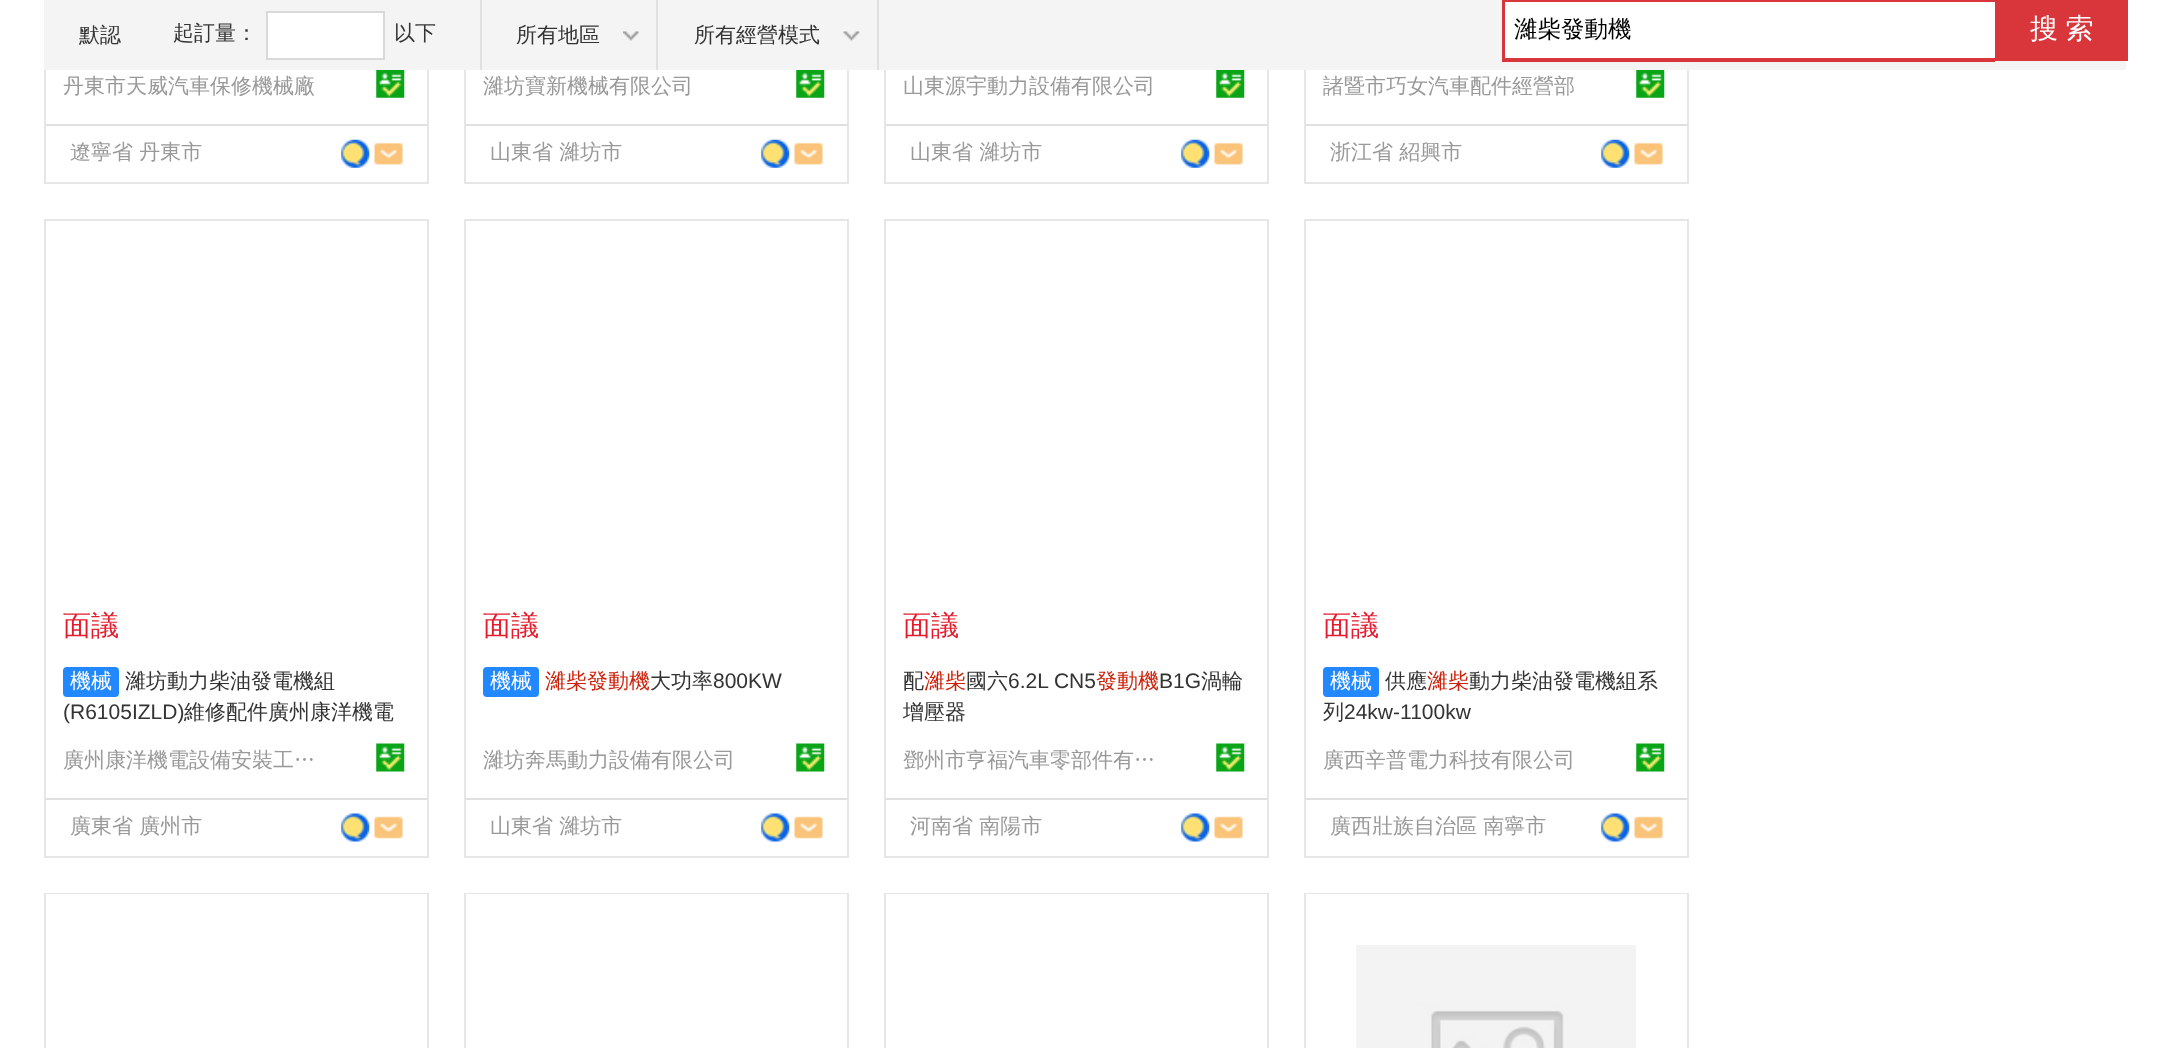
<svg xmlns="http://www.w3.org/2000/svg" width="2170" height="1048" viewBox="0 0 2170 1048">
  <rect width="100%" height="100%" fill="rgb(255,255,255)"/>
  <rect x="45" y="-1" width="383" height="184" fill="none" stroke="rgb(230,230,230)" stroke-width="2"/>
  <rect x="465" y="-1" width="383" height="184" fill="none" stroke="rgb(230,230,230)" stroke-width="2"/>
  <rect x="885" y="-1" width="383" height="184" fill="none" stroke="rgb(230,230,230)" stroke-width="2"/>
  <rect x="1305" y="-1" width="383" height="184" fill="none" stroke="rgb(230,230,230)" stroke-width="2"/>
  <rect x="44" y="0" width="2082" height="70" fill="rgb(244,244,244)"/>
  <text x="79" y="42" font-family="WenQuanYi Zen Hei" font-size="21" font-weight="500" fill="rgb(51,51,51)">默認</text>
  <rect x="480" y="0" width="2" height="70" fill="rgb(224,224,224)"/>
  <text x="173" y="40" font-family="WenQuanYi Zen Hei" font-size="21" font-weight="500" fill="rgb(51,51,51)">起訂量：</text>
  <rect x="267" y="12" width="117" height="47" fill="rgb(255,255,255)" stroke="rgb(217,217,217)" stroke-width="2"/>
  <text x="394" y="40" font-family="WenQuanYi Zen Hei" font-size="21" font-weight="500" fill="rgb(51,51,51)">以下</text>
  <rect x="656" y="0" width="2" height="70" fill="rgb(224,224,224)"/>
  <text x="516" y="42" font-family="WenQuanYi Zen Hei" font-size="21" font-weight="500" fill="rgb(51,51,51)">所有地區</text>
  <image x="623" y="31" width="16" height="10" href="pic1.png"/>
  <rect x="877" y="0" width="2" height="70" fill="rgb(224,224,224)"/>
  <text x="694" y="42" font-family="WenQuanYi Zen Hei" font-size="21" font-weight="500" fill="rgb(51,51,51)">所有經營模式</text>
  <image x="843" y="31" width="17" height="10" href="pic2.png"/>
  <rect x="1502" y="0" width="493" height="2" fill="rgb(217,54,60)"/>
  <rect x="1502" y="58" width="493" height="4" fill="rgb(217,54,60)"/>
  <rect x="1502" y="0" width="4" height="61" fill="rgb(217,54,60)"/>
  <rect x="1505" y="2" width="621" height="56" fill="rgb(255,255,255)"/>
  <text x="1514" y="37" font-family="WenQuanYi Zen Hei" font-size="23.5" font-weight="500" fill="rgb(0,0,0)">濰柴發動機</text>
  <rect x="1995" y="0" width="133" height="61" fill="rgb(217,54,60)"/>
  <text x="2030" y="38" word-spacing="-1" font-family="WenQuanYi Zen Hei" font-size="28" font-weight="500" fill="rgb(255,255,255)">搜 索</text>
  <text x="63" y="93" font-family="WenQuanYi Zen Hei" font-size="21" font-weight="500" fill="rgb(153,153,153)">丹東市天威汽車保修機械廠</text>
  <image x="376" y="70" width="29" height="28" href="pic3.png"/>
  <rect x="46" y="124" width="381" height="2" fill="rgb(224,224,224)"/>
  <text x="70" y="159" font-family="WenQuanYi Zen Hei" font-size="21" font-weight="500" fill="rgb(153,153,153)">遼寧省 丹東市</text>
  <image x="341" y="139" width="29" height="29" href="pic4.png"/>
  <image x="374" y="142" width="29" height="23" href="pic5.png"/>
  <text x="483" y="93" font-family="WenQuanYi Zen Hei" font-size="21" font-weight="500" fill="rgb(153,153,153)">濰坊寶新機械有限公司</text>
  <image x="796" y="70" width="29" height="28" href="pic6.png"/>
  <rect x="466" y="124" width="381" height="2" fill="rgb(224,224,224)"/>
  <text x="490" y="159" font-family="WenQuanYi Zen Hei" font-size="21" font-weight="500" fill="rgb(153,153,153)">山東省 濰坊市</text>
  <image x="761" y="139" width="29" height="29" href="pic4.png"/>
  <image x="794" y="142" width="29" height="23" href="pic7.png"/>
  <text x="903" y="93" font-family="WenQuanYi Zen Hei" font-size="21" font-weight="500" fill="rgb(153,153,153)">山東源宇動力設備有限公司</text>
  <image x="1216" y="70" width="29" height="28" href="pic3.png"/>
  <rect x="886" y="124" width="381" height="2" fill="rgb(224,224,224)"/>
  <text x="910" y="159" font-family="WenQuanYi Zen Hei" font-size="21" font-weight="500" fill="rgb(153,153,153)">山東省 濰坊市</text>
  <image x="1181" y="139" width="29" height="29" href="pic4.png"/>
  <image x="1214" y="142" width="29" height="23" href="pic8.png"/>
  <text x="1323" y="93" font-family="WenQuanYi Zen Hei" font-size="21" font-weight="500" fill="rgb(153,153,153)">諸暨市巧女汽車配件經營部</text>
  <image x="1636" y="70" width="29" height="28" href="pic3.png"/>
  <rect x="1306" y="124" width="381" height="2" fill="rgb(224,224,224)"/>
  <text x="1330" y="159" font-family="WenQuanYi Zen Hei" font-size="21" font-weight="500" fill="rgb(153,153,153)">浙江省 紹興市</text>
  <image x="1601" y="139" width="29" height="29" href="pic9.png"/>
  <image x="1634" y="142" width="29" height="23" href="pic5.png"/>
  <rect x="45" y="220" width="383" height="637" fill="none" stroke="rgb(230,230,230)" stroke-width="2"/>
  <text x="63" y="635" font-family="WenQuanYi Zen Hei" font-size="28" font-weight="500" fill="rgb(228,28,46)">面議</text>
  <rect x="63" y="667" width="56" height="30" rx="4" fill="rgb(34,136,255)"/>
  <text x="70" y="688" font-family="WenQuanYi Zen Hei" font-size="21" font-weight="500" fill="rgb(255,255,255)">機械</text>
  <text x="125" y="688" font-family="WenQuanYi Zen Hei" font-size="21" font-weight="500" fill="rgb(51,51,51)">濰坊動力柴油發電機組</text>
  <text x="63" y="719" font-family="Liberation Sans" font-size="21" fill="rgb(51,51,51)">(R6105IZLD)</text>
  <text x="184" y="719" font-family="WenQuanYi Zen Hei" font-size="21" font-weight="500" fill="rgb(51,51,51)">維修配件廣州康洋機電</text>
  <text x="63" y="767" font-family="WenQuanYi Zen Hei" font-size="21" font-weight="500" fill="rgb(153,153,153)">廣州康洋機電設備安裝工…</text>
  <image x="376" y="743" width="29" height="29" href="pic10.png"/>
  <rect x="46" y="798" width="381" height="2" fill="rgb(224,224,224)"/>
  <text x="70" y="833" font-family="WenQuanYi Zen Hei" font-size="21" font-weight="500" fill="rgb(153,153,153)">廣東省 廣州市</text>
  <image x="341" y="813" width="29" height="29" href="pic11.png"/>
  <image x="374" y="816" width="29" height="23" href="pic12.png"/>
  <rect x="465" y="220" width="383" height="637" fill="none" stroke="rgb(230,230,230)" stroke-width="2"/>
  <text x="483" y="635" font-family="WenQuanYi Zen Hei" font-size="28" font-weight="500" fill="rgb(228,28,46)">面議</text>
  <rect x="483" y="667" width="56" height="30" rx="4" fill="rgb(34,136,255)"/>
  <text x="490" y="688" font-family="WenQuanYi Zen Hei" font-size="21" font-weight="500" fill="rgb(255,255,255)">機械</text>
  <text x="545" y="688" font-family="WenQuanYi Zen Hei" font-size="21" font-weight="500" fill="rgb(204,34,11)">濰柴發動機</text>
  <text x="650" y="688" font-family="WenQuanYi Zen Hei" font-size="21" font-weight="500" fill="rgb(51,51,51)">大功率</text>
  <text x="713" y="688" font-family="Liberation Sans" font-size="21" fill="rgb(51,51,51)">800KW</text>
  <text x="483" y="767" font-family="WenQuanYi Zen Hei" font-size="21" font-weight="500" fill="rgb(153,153,153)">濰坊奔馬動力設備有限公司</text>
  <image x="796" y="743" width="29" height="29" href="pic13.png"/>
  <rect x="466" y="798" width="381" height="2" fill="rgb(224,224,224)"/>
  <text x="490" y="833" font-family="WenQuanYi Zen Hei" font-size="21" font-weight="500" fill="rgb(153,153,153)">山東省 濰坊市</text>
  <image x="761" y="813" width="29" height="29" href="pic11.png"/>
  <image x="794" y="816" width="29" height="23" href="pic14.png"/>
  <rect x="885" y="220" width="383" height="637" fill="none" stroke="rgb(230,230,230)" stroke-width="2"/>
  <text x="903" y="635" font-family="WenQuanYi Zen Hei" font-size="28" font-weight="500" fill="rgb(228,28,46)">面議</text>
  <text x="903" y="688" font-family="WenQuanYi Zen Hei" font-size="21" font-weight="500" fill="rgb(51,51,51)">配</text>
  <text x="924" y="688" font-family="WenQuanYi Zen Hei" font-size="21" font-weight="500" fill="rgb(204,34,11)">濰柴</text>
  <text x="966" y="688" font-family="WenQuanYi Zen Hei" font-size="21" font-weight="500" fill="rgb(51,51,51)">國六</text>
  <text x="1008" y="688" font-family="Liberation Sans" font-size="21" fill="rgb(51,51,51)">6.2L CN5</text>
  <text x="1096" y="688" font-family="WenQuanYi Zen Hei" font-size="21" font-weight="500" fill="rgb(204,34,11)">發動機</text>
  <text x="1159" y="688" font-family="Liberation Sans" font-size="21" fill="rgb(51,51,51)">B1G</text>
  <g font-family="WenQuanYi Zen Hei" font-size="21" font-weight="500" fill="rgb(51,51,51)">
    <text x="1201" y="688">渦輪</text>
    <text x="903" y="719">增壓器</text>
  </g>
  <text x="903" y="767" font-family="WenQuanYi Zen Hei" font-size="21" font-weight="500" fill="rgb(153,153,153)">鄧州市亨福汽車零部件有…</text>
  <image x="1216" y="743" width="29" height="29" href="pic10.png"/>
  <rect x="886" y="798" width="381" height="2" fill="rgb(224,224,224)"/>
  <text x="910" y="833" font-family="WenQuanYi Zen Hei" font-size="21" font-weight="500" fill="rgb(153,153,153)">河南省 南陽市</text>
  <image x="1181" y="813" width="29" height="29" href="pic11.png"/>
  <image x="1214" y="816" width="29" height="23" href="pic15.png"/>
  <rect x="1305" y="220" width="383" height="637" fill="none" stroke="rgb(230,230,230)" stroke-width="2"/>
  <text x="1323" y="635" font-family="WenQuanYi Zen Hei" font-size="28" font-weight="500" fill="rgb(228,28,46)">面議</text>
  <rect x="1323" y="667" width="56" height="30" rx="4" fill="rgb(34,136,255)"/>
  <text x="1330" y="688" font-family="WenQuanYi Zen Hei" font-size="21" font-weight="500" fill="rgb(255,255,255)">機械</text>
  <text x="1385" y="688" font-family="WenQuanYi Zen Hei" font-size="21" font-weight="500" fill="rgb(51,51,51)">供應</text>
  <text x="1427" y="688" font-family="WenQuanYi Zen Hei" font-size="21" font-weight="500" fill="rgb(204,34,11)">濰柴</text>
  <g font-family="WenQuanYi Zen Hei" font-size="21" font-weight="500" fill="rgb(51,51,51)">
    <text x="1469" y="688">動力柴油發電機組系</text>
    <text x="1323" y="719">列</text>
  </g>
  <text x="1344" y="719" font-family="Liberation Sans" font-size="21" fill="rgb(51,51,51)">24kw-1100kw</text>
  <text x="1323" y="767" font-family="WenQuanYi Zen Hei" font-size="21" font-weight="500" fill="rgb(153,153,153)">廣西辛普電力科技有限公司</text>
  <image x="1636" y="743" width="29" height="29" href="pic10.png"/>
  <rect x="1306" y="798" width="381" height="2" fill="rgb(224,224,224)"/>
  <text x="1330" y="833" font-family="WenQuanYi Zen Hei" font-size="21" font-weight="500" fill="rgb(153,153,153)">廣西壯族自治區 南寧市</text>
  <image x="1601" y="813" width="29" height="29" href="pic16.png"/>
  <image x="1634" y="816" width="29" height="23" href="pic12.png"/>
  <rect x="45" y="894" width="383" height="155" fill="none" stroke="rgb(230,230,230)" stroke-width="2"/>
  <rect x="46" y="894" width="381" height="1" fill="rgb(255,255,255)"/>
  <rect x="465" y="894" width="383" height="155" fill="none" stroke="rgb(230,230,230)" stroke-width="2"/>
  <rect x="466" y="894" width="381" height="1" fill="rgb(255,255,255)"/>
  <rect x="885" y="894" width="383" height="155" fill="none" stroke="rgb(230,230,230)" stroke-width="2"/>
  <rect x="886" y="894" width="381" height="1" fill="rgb(255,255,255)"/>
  <rect x="1305" y="894" width="383" height="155" fill="none" stroke="rgb(230,230,230)" stroke-width="2"/>
  <rect x="1306" y="894" width="381" height="1" fill="rgb(255,255,255)"/>
  <image x="1356" y="945" width="280" height="103" href="pic17.png"/>
</svg>
